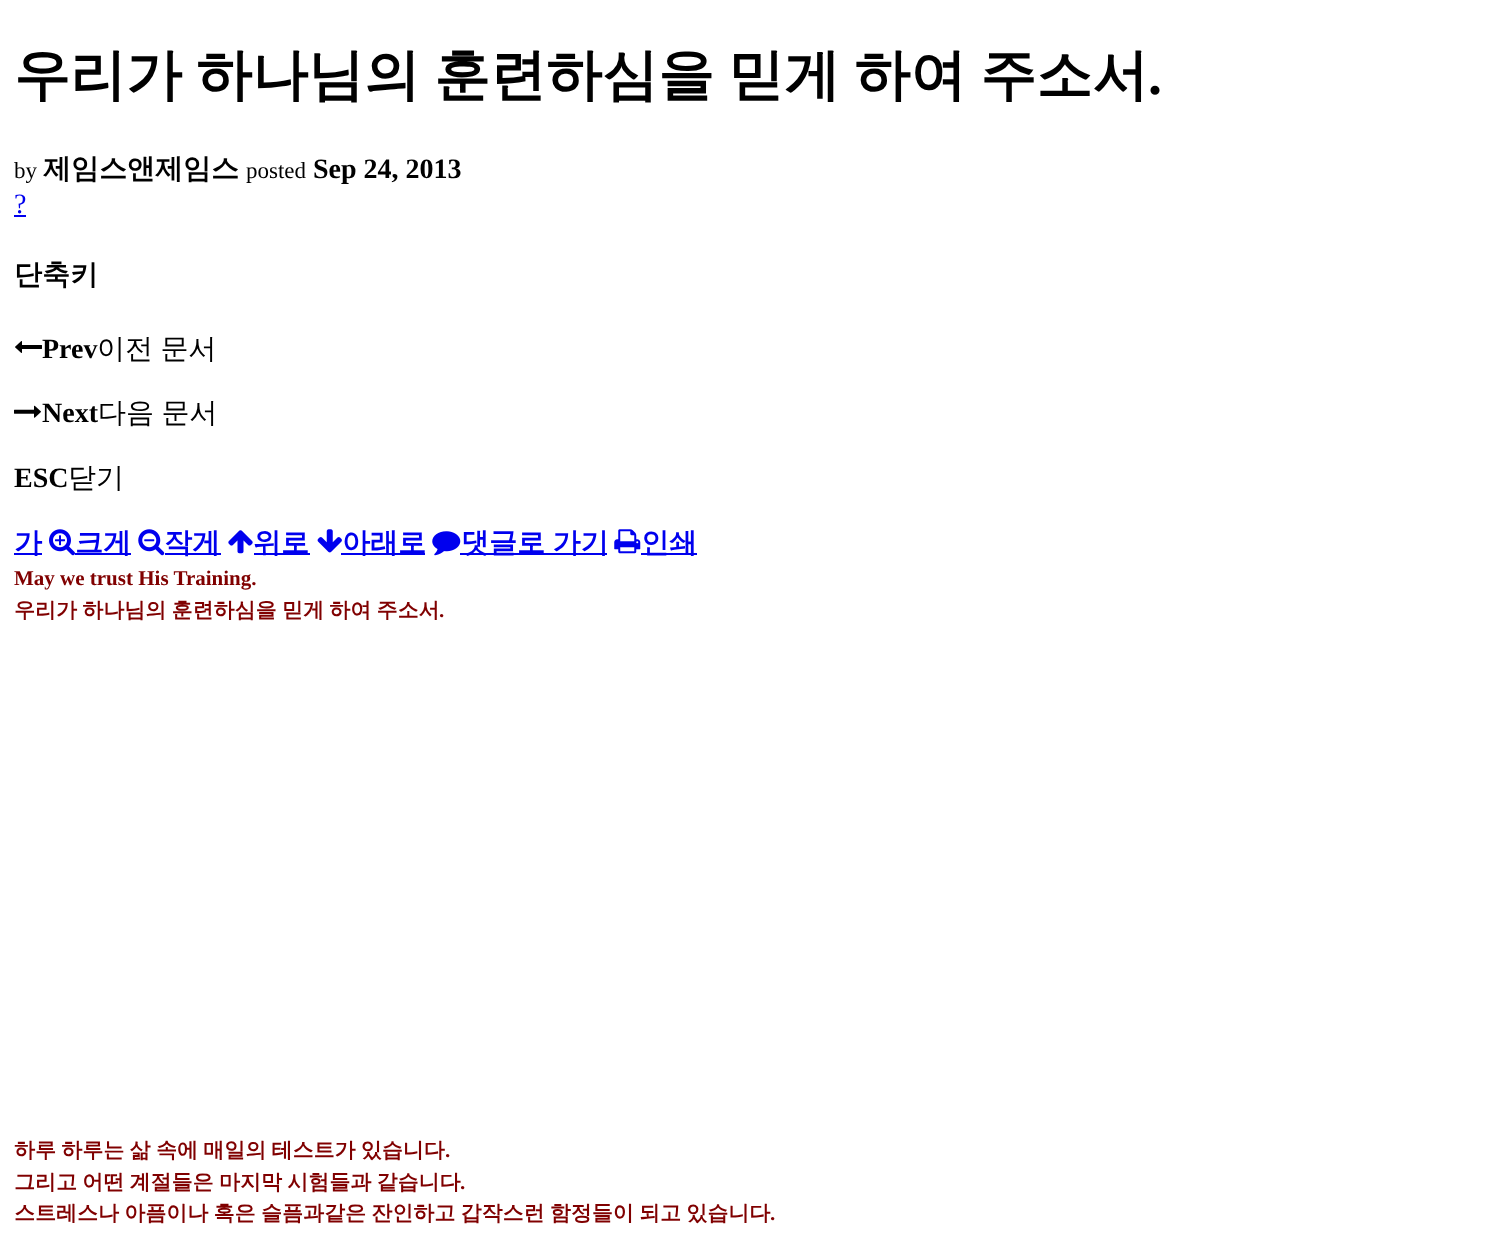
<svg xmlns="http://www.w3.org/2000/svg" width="1509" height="1255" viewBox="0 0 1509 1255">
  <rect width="100%" height="100%" fill="rgb(255,255,255)"/>
  <text x="14" y="94" word-spacing="-2.75" font-family="WenQuanYi Zen Hei" font-size="56" font-weight="bold" fill="rgb(0,0,0)">우리가 하나님의 훈련하심을 믿게 하여 주소서</text>
  <text x="1148" y="94" font-family="Liberation Serif" font-size="56" font-weight="bold" fill="rgb(0,0,0)">.</text>
  <text x="14" y="178" font-family="Liberation Serif" font-size="23" fill="rgb(0,0,0)">by</text>
  <text x="43" y="178" font-family="WenQuanYi Zen Hei" font-size="28" font-weight="bold" fill="rgb(0,0,0)">제임스앤제임스</text>
  <text x="246" y="178" font-family="Liberation Serif" font-size="23" fill="rgb(0,0,0)">posted</text>
  <text x="313" y="178" font-family="Liberation Serif" font-size="28" font-weight="bold" fill="rgb(0,0,0)">Sep 24, 2013</text>
  <text x="14" y="213" font-family="Liberation Serif" font-size="28" fill="rgb(0,0,238)">?</text>
  <rect x="14" y="215" width="12" height="2" fill="rgb(0,0,238)"/>
  <text x="14" y="284" font-family="WenQuanYi Zen Hei" font-size="28" font-weight="bold" fill="rgb(0,0,0)">단축키</text>
  <image x="15" y="341" width="27" height="12" href="pic1.png"/>
  <text x="42" y="358" font-family="Liberation Serif" font-size="28" font-weight="bold" fill="rgb(0,0,0)">Prev</text>
  <text x="97" y="358" word-spacing="-1" font-family="WenQuanYi Zen Hei" font-size="28" font-weight="500" fill="rgb(0,0,0)">이전 문서</text>
  <image x="14" y="405" width="27" height="13" href="pic2.png"/>
  <text x="42" y="422" font-family="Liberation Serif" font-size="28" font-weight="bold" fill="rgb(0,0,0)">Next</text>
  <text x="98" y="422" word-spacing="-1" font-family="WenQuanYi Zen Hei" font-size="28" font-weight="500" fill="rgb(0,0,0)">다음 문서</text>
  <text x="14" y="487" font-family="Liberation Serif" font-size="28" font-weight="bold" fill="rgb(0,0,0)">ESC</text>
  <text x="68" y="487" font-family="WenQuanYi Zen Hei" font-size="28" font-weight="500" fill="rgb(0,0,0)">닫기</text>
  <rect x="14" y="553" width="28" height="2" fill="rgb(0,0,238)"/>
  <text x="14" y="552" font-family="WenQuanYi Zen Hei" font-size="28" font-weight="bold" fill="rgb(0,0,238)">가</text>
  <image x="49" y="529" width="26" height="27" href="pic3.png"/>
  <rect x="75" y="553" width="56" height="2" fill="rgb(0,0,238)"/>
  <text x="75" y="552" font-family="WenQuanYi Zen Hei" font-size="28" font-weight="bold" fill="rgb(0,0,238)">크게</text>
  <image x="138" y="529" width="27" height="27" href="pic4.png"/>
  <rect x="165" y="553" width="56" height="2" fill="rgb(0,0,238)"/>
  <text x="164" y="552" font-family="WenQuanYi Zen Hei" font-size="28" font-weight="bold" fill="rgb(0,0,238)">작게</text>
  <image x="228" y="530" width="25" height="24" href="pic5.png"/>
  <rect x="254" y="553" width="56" height="2" fill="rgb(0,0,238)"/>
  <text x="253" y="552" font-family="WenQuanYi Zen Hei" font-size="28" font-weight="bold" fill="rgb(0,0,238)">위로</text>
  <image x="317" y="529" width="25" height="24" href="pic6.png"/>
  <rect x="341" y="553" width="84" height="2" fill="rgb(0,0,238)"/>
  <text x="342" y="552" font-family="WenQuanYi Zen Hei" font-size="28" font-weight="bold" fill="rgb(0,0,238)">아래로</text>
  <image x="432" y="531" width="29" height="25" href="pic7.png"/>
  <rect x="460" y="553" width="147" height="2" fill="rgb(0,0,238)"/>
  <text x="461" y="552" word-spacing="-1" font-family="WenQuanYi Zen Hei" font-size="28" font-weight="bold" fill="rgb(0,0,238)">댓글로 가기</text>
  <image x="614" y="529" width="27" height="25" href="pic8.png"/>
  <rect x="641" y="553" width="56" height="2" fill="rgb(0,0,238)"/>
  <text x="641" y="552" font-family="WenQuanYi Zen Hei" font-size="28" font-weight="bold" fill="rgb(0,0,238)">인쇄</text>
  <text x="14" y="585" font-family="Liberation Serif" font-size="21" font-weight="bold" fill="rgb(128,0,0)">May we trust His Training.</text>
  <text x="14" y="617" word-spacing="-1" font-family="WenQuanYi Zen Hei" font-size="21" font-weight="bold" fill="rgb(128,0,0)">우리가 하나님의 훈련하심을 믿게 하여 주소서</text>
  <text x="439" y="617" font-family="Liberation Serif" font-size="21" font-weight="bold" fill="rgb(128,0,0)">.</text>
  <text x="14" y="1157" word-spacing="-1" font-family="WenQuanYi Zen Hei" font-size="21" font-weight="bold" fill="rgb(128,0,0)">하루 하루는 삶 속에 매일의 테스트가 있습니다</text>
  <text x="445" y="1157" font-family="Liberation Serif" font-size="21" font-weight="bold" fill="rgb(128,0,0)">.</text>
  <text x="14" y="1189" word-spacing="-1" font-family="WenQuanYi Zen Hei" font-size="21" font-weight="bold" fill="rgb(128,0,0)">그리고 어떤 계절들은 마지막 시험들과 같습니다</text>
  <text x="460" y="1189" font-family="Liberation Serif" font-size="21" font-weight="bold" fill="rgb(128,0,0)">.</text>
  <text x="14" y="1220" word-spacing="-1" font-family="WenQuanYi Zen Hei" font-size="21" font-weight="bold" fill="rgb(128,0,0)">스트레스나 아픔이나 혹은 슬픔과같은 잔인하고 갑작스런 함정들이 되고 있습니다</text>
  <text x="770" y="1220" font-family="Liberation Serif" font-size="21" font-weight="bold" fill="rgb(128,0,0)">.</text>
</svg>
